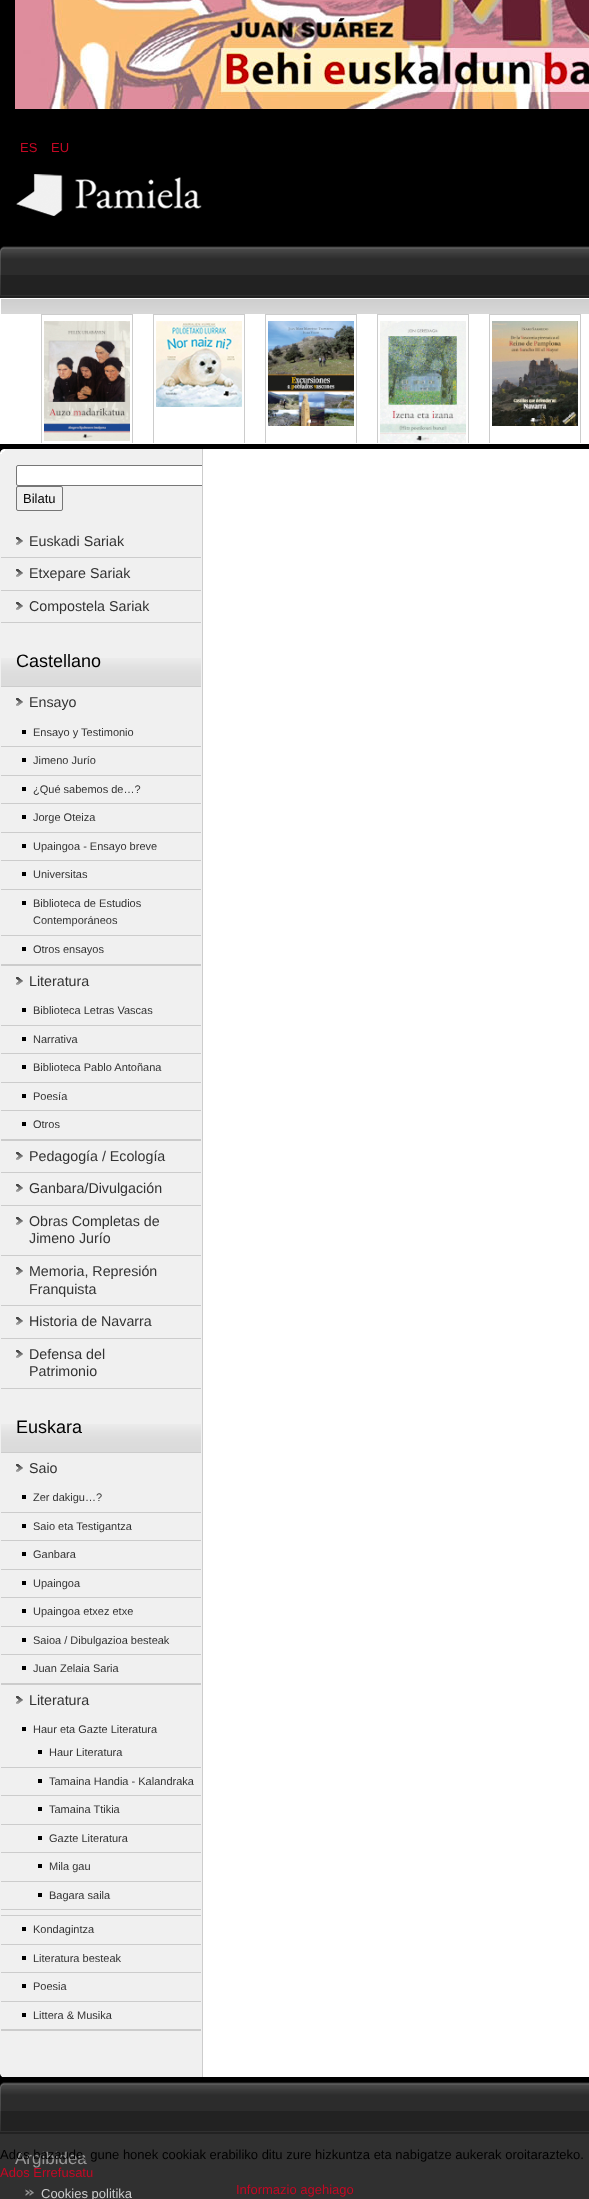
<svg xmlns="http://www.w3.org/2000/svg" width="589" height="2199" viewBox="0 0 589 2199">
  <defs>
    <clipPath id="clip1"><rect x="1" y="299" width="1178" height="144"/></clipPath>
    <clipPath id="clip2"><rect x="0" y="449" width="202" height="1628"/></clipPath>
  </defs>
  <rect width="100%" height="100%" fill="rgb(0,0,0)"/>
  <image x="15" y="0" width="574" height="109" href="pic1.png"/>
  <g font-family="Liberation Sans" font-size="13" fill="rgb(196,8,36)">
    <text x="20" y="152">ES</text>
    <text x="51" y="152">EU</text>
  </g>
  <image x="16" y="174" width="186" height="42" href="pic2.png"/>
  <image x="5" y="246" width="584" height="52" href="pic3.png"/>
  <image x="0" y="246" width="5" height="52" href="pic4.png"/>
  <rect x="0" y="298" width="589" height="146" fill="rgb(255,255,255)"/>
  <image x="1" y="299" width="588" height="15" href="pic5.png"/>
  <g clip-path="url(#clip1)">
    <rect x="41.5" y="314.5" width="91" height="141" fill="none" stroke="rgb(204,204,204)"/>
  </g>
  <image x="44" y="321" width="86" height="120" href="pic6.png"/>
  <g clip-path="url(#clip1)">
    <rect x="153.5" y="314.5" width="91" height="141" fill="none" stroke="rgb(204,204,204)"/>
  </g>
  <image x="156" y="321" width="86" height="86" href="pic7.png"/>
  <g clip-path="url(#clip1)">
    <rect x="265.5" y="314.5" width="91" height="141" fill="none" stroke="rgb(204,204,204)"/>
  </g>
  <image x="268" y="321" width="86" height="105" href="pic8.png"/>
  <g clip-path="url(#clip1)">
    <rect x="377.5" y="314.5" width="91" height="141" fill="none" stroke="rgb(204,204,204)"/>
  </g>
  <image x="380" y="321" width="86" height="122" href="pic9.png"/>
  <g clip-path="url(#clip1)">
    <rect x="489.5" y="314.5" width="91" height="141" fill="none" stroke="rgb(204,204,204)"/>
  </g>
  <image x="492" y="321" width="86" height="105" href="pic10.png"/>
  <rect x="0" y="449" width="202" height="1628" fill="rgb(240,240,240)"/>
  <image x="0" y="449" width="5" height="5" href="pic11.png"/>
  <rect x="203" y="449" width="386" height="1628" fill="rgb(255,255,255)"/>
  <rect x="202" y="449" width="1" height="1628" fill="rgb(204,204,204)"/>
  <path d="M18 465H202V486H18C17 486 16 485 16 484V467C16 466 17 465 18 465Z" fill="rgb(255,255,255)"/>
  <g clip-path="url(#clip2)">
    <rect x="16.5" y="465.5" width="224" height="20" rx="1.5" fill="none" stroke="rgb(118,118,118)"/>
  </g>
  <rect x="16.5" y="486.5" width="46" height="24" rx="1.5" fill="none" stroke="rgb(118,118,118)"/>
  <text x="23" y="503" font-family="Liberation Sans" font-size="13" fill="rgb(0,0,0)">Bilatu</text>
  <rect x="1" y="557" width="200" height="1" fill="rgb(204,204,204)"/>
  <image x="16" y="537" width="7" height="8" href="pic12.png"/>
  <text x="29" y="546" font-family="Liberation Sans" font-size="14.25" fill="rgb(51,51,51)">Euskadi Sariak</text>
  <rect x="1" y="590" width="200" height="1" fill="rgb(204,204,204)"/>
  <image x="16" y="569" width="7" height="8" href="pic12.png"/>
  <text x="29" y="578" font-family="Liberation Sans" font-size="14.25" fill="rgb(51,51,51)">Etxepare Sariak</text>
  <rect x="1" y="622" width="200" height="1" fill="rgb(204,204,204)"/>
  <image x="16" y="602" width="7" height="8" href="pic12.png"/>
  <text x="29" y="611" font-family="Liberation Sans" font-size="14.25" fill="rgb(51,51,51)">Compostela Sariak</text>
  <image x="1" y="658" width="200" height="28" href="pic13.png"/>
  <rect x="1" y="686" width="200" height="1" fill="rgb(204,204,204)"/>
  <text x="16" y="667" font-family="Liberation Sans" font-size="18" fill="rgb(0,0,0)">Castellano</text>
  <rect x="1" y="964" width="200" height="2" fill="rgb(204,204,204)"/>
  <image x="16" y="698" width="7" height="8" href="pic12.png"/>
  <text x="29" y="707" font-family="Liberation Sans" font-size="14.25" fill="rgb(51,51,51)">Ensayo</text>
  <rect x="1" y="746" width="200" height="1" fill="rgb(204,204,204)"/>
  <rect x="22" y="730" width="4" height="4" fill="rgb(0,0,0)"/>
  <text x="33" y="736" font-family="Liberation Sans" font-size="11" fill="rgb(51,51,51)">Ensayo y Testimonio</text>
  <rect x="1" y="775" width="200" height="1" fill="rgb(204,204,204)"/>
  <rect x="22" y="758" width="4" height="4" fill="rgb(0,0,0)"/>
  <text x="33" y="764" font-family="Liberation Sans" font-size="11" fill="rgb(51,51,51)">Jimeno Jurío</text>
  <rect x="1" y="803" width="200" height="1" fill="rgb(204,204,204)"/>
  <rect x="22" y="787" width="4" height="4" fill="rgb(0,0,0)"/>
  <text x="33" y="793" font-family="Liberation Sans" font-size="11" fill="rgb(51,51,51)">¿Qué sabemos de…?</text>
  <rect x="1" y="832" width="200" height="1" fill="rgb(204,204,204)"/>
  <rect x="22" y="815" width="4" height="4" fill="rgb(0,0,0)"/>
  <text x="33" y="821" font-family="Liberation Sans" font-size="11" fill="rgb(51,51,51)">Jorge Oteiza</text>
  <rect x="1" y="860" width="200" height="1" fill="rgb(204,204,204)"/>
  <rect x="22" y="844" width="4" height="4" fill="rgb(0,0,0)"/>
  <text x="33" y="850" font-family="Liberation Sans" font-size="11" fill="rgb(51,51,51)">Upaingoa - Ensayo breve</text>
  <rect x="1" y="889" width="200" height="1" fill="rgb(204,204,204)"/>
  <rect x="22" y="872" width="4" height="4" fill="rgb(0,0,0)"/>
  <text x="33" y="878" font-family="Liberation Sans" font-size="11" fill="rgb(51,51,51)">Universitas</text>
  <rect x="1" y="935" width="200" height="1" fill="rgb(204,204,204)"/>
  <rect x="22" y="901" width="4" height="4" fill="rgb(0,0,0)"/>
  <g font-family="Liberation Sans" font-size="11" fill="rgb(51,51,51)">
    <text>
      <tspan x="33" y="907">Biblioteca de Estudios</tspan>
      <tspan x="33" y="924">Contemporáneos</tspan>
    </text>
  </g>
  <rect x="22" y="947" width="4" height="4" fill="rgb(0,0,0)"/>
  <text x="33" y="953" font-family="Liberation Sans" font-size="11" fill="rgb(51,51,51)">Otros ensayos</text>
  <rect x="1" y="1139" width="200" height="2" fill="rgb(204,204,204)"/>
  <image x="16" y="977" width="7" height="8" href="pic12.png"/>
  <text x="29" y="986" font-family="Liberation Sans" font-size="14.25" fill="rgb(51,51,51)">Literatura</text>
  <rect x="1" y="1025" width="200" height="1" fill="rgb(204,204,204)"/>
  <rect x="22" y="1008" width="4" height="4" fill="rgb(0,0,0)"/>
  <text x="33" y="1014" font-family="Liberation Sans" font-size="11" fill="rgb(51,51,51)">Biblioteca Letras Vascas</text>
  <rect x="1" y="1053" width="200" height="1" fill="rgb(204,204,204)"/>
  <rect x="22" y="1037" width="4" height="4" fill="rgb(0,0,0)"/>
  <text x="33" y="1043" font-family="Liberation Sans" font-size="11" fill="rgb(51,51,51)">Narrativa</text>
  <rect x="1" y="1082" width="200" height="1" fill="rgb(204,204,204)"/>
  <rect x="22" y="1065" width="4" height="4" fill="rgb(0,0,0)"/>
  <text x="33" y="1071" font-family="Liberation Sans" font-size="11" fill="rgb(51,51,51)">Biblioteca Pablo Antoñana</text>
  <rect x="1" y="1110" width="200" height="1" fill="rgb(204,204,204)"/>
  <rect x="22" y="1094" width="4" height="4" fill="rgb(0,0,0)"/>
  <text x="33" y="1100" font-family="Liberation Sans" font-size="11" fill="rgb(51,51,51)">Poesía</text>
  <rect x="22" y="1122" width="4" height="4" fill="rgb(0,0,0)"/>
  <text x="33" y="1128" font-family="Liberation Sans" font-size="11" fill="rgb(51,51,51)">Otros</text>
  <rect x="1" y="1172" width="200" height="1" fill="rgb(204,204,204)"/>
  <image x="16" y="1152" width="7" height="8" href="pic12.png"/>
  <text x="29" y="1161" font-family="Liberation Sans" font-size="14.25" fill="rgb(51,51,51)">Pedagogía / Ecología</text>
  <rect x="1" y="1205" width="200" height="1" fill="rgb(204,204,204)"/>
  <image x="16" y="1184" width="7" height="8" href="pic12.png"/>
  <text x="29" y="1193" font-family="Liberation Sans" font-size="14.25" fill="rgb(51,51,51)">Ganbara/Divulgación</text>
  <rect x="1" y="1255" width="200" height="1" fill="rgb(204,204,204)"/>
  <image x="16" y="1217" width="7" height="8" href="pic12.png"/>
  <g font-family="Liberation Sans" font-size="14.25" fill="rgb(51,51,51)">
    <text>
      <tspan x="29" y="1226">Obras Completas de</tspan>
      <tspan x="29" y="1243">Jimeno Jurío</tspan>
    </text>
  </g>
  <rect x="1" y="1305" width="200" height="1" fill="rgb(204,204,204)"/>
  <image x="16" y="1267" width="7" height="8" href="pic12.png"/>
  <g font-family="Liberation Sans" font-size="14.25" fill="rgb(51,51,51)">
    <text>
      <tspan x="29" y="1276">Memoria, Represión</tspan>
      <tspan x="29" y="1294">Franquista</tspan>
    </text>
  </g>
  <rect x="1" y="1338" width="200" height="1" fill="rgb(204,204,204)"/>
  <image x="16" y="1317" width="7" height="8" href="pic12.png"/>
  <text x="29" y="1326" font-family="Liberation Sans" font-size="14.25" fill="rgb(51,51,51)">Historia de Navarra</text>
  <rect x="1" y="1388" width="200" height="1" fill="rgb(204,204,204)"/>
  <image x="16" y="1350" width="7" height="8" href="pic12.png"/>
  <g font-family="Liberation Sans" font-size="14.25" fill="rgb(51,51,51)">
    <text>
      <tspan x="29" y="1359">Defensa del</tspan>
      <tspan x="29" y="1376">Patrimonio</tspan>
    </text>
  </g>
  <image x="1" y="1424" width="200" height="28" href="pic13.png"/>
  <rect x="1" y="1452" width="200" height="1" fill="rgb(204,204,204)"/>
  <text x="16" y="1433" font-family="Liberation Sans" font-size="18" fill="rgb(0,0,0)">Euskara</text>
  <rect x="1" y="1683" width="200" height="2" fill="rgb(204,204,204)"/>
  <image x="16" y="1464" width="7" height="8" href="pic12.png"/>
  <text x="29" y="1473" font-family="Liberation Sans" font-size="14.25" fill="rgb(51,51,51)">Saio</text>
  <rect x="1" y="1512" width="200" height="1" fill="rgb(204,204,204)"/>
  <rect x="22" y="1495" width="4" height="4" fill="rgb(0,0,0)"/>
  <text x="33" y="1501" font-family="Liberation Sans" font-size="11" fill="rgb(51,51,51)">Zer dakigu…?</text>
  <rect x="1" y="1540" width="200" height="1" fill="rgb(204,204,204)"/>
  <rect x="22" y="1524" width="4" height="4" fill="rgb(0,0,0)"/>
  <text x="33" y="1530" font-family="Liberation Sans" font-size="11" fill="rgb(51,51,51)">Saio eta Testigantza</text>
  <rect x="1" y="1569" width="200" height="1" fill="rgb(204,204,204)"/>
  <rect x="22" y="1552" width="4" height="4" fill="rgb(0,0,0)"/>
  <text x="33" y="1558" font-family="Liberation Sans" font-size="11" fill="rgb(51,51,51)">Ganbara</text>
  <rect x="1" y="1597" width="200" height="1" fill="rgb(204,204,204)"/>
  <rect x="22" y="1581" width="4" height="4" fill="rgb(0,0,0)"/>
  <text x="33" y="1587" font-family="Liberation Sans" font-size="11" fill="rgb(51,51,51)">Upaingoa</text>
  <rect x="1" y="1626" width="200" height="1" fill="rgb(204,204,204)"/>
  <rect x="22" y="1609" width="4" height="4" fill="rgb(0,0,0)"/>
  <text x="33" y="1615" font-family="Liberation Sans" font-size="11" fill="rgb(51,51,51)">Upaingoa etxez etxe</text>
  <rect x="1" y="1654" width="200" height="1" fill="rgb(204,204,204)"/>
  <rect x="22" y="1638" width="4" height="4" fill="rgb(0,0,0)"/>
  <text x="33" y="1644" font-family="Liberation Sans" font-size="11" fill="rgb(51,51,51)">Saioa / Dibulgazioa besteak</text>
  <rect x="22" y="1666" width="4" height="4" fill="rgb(0,0,0)"/>
  <text x="33" y="1672" font-family="Liberation Sans" font-size="11" fill="rgb(51,51,51)">Juan Zelaia Saria</text>
  <rect x="1" y="2029" width="200" height="2" fill="rgb(204,204,204)"/>
  <image x="16" y="1696" width="7" height="8" href="pic12.png"/>
  <text x="29" y="1705" font-family="Liberation Sans" font-size="14.25" fill="rgb(51,51,51)">Literatura</text>
  <rect x="1" y="1915" width="200" height="1" fill="rgb(204,204,204)"/>
  <rect x="22" y="1727" width="4" height="4" fill="rgb(0,0,0)"/>
  <text x="33" y="1733" font-family="Liberation Sans" font-size="11" fill="rgb(51,51,51)">Haur eta Gazte Literatura</text>
  <rect x="1" y="1767" width="200" height="1" fill="rgb(204,204,204)"/>
  <rect x="38" y="1750" width="4" height="4" fill="rgb(0,0,0)"/>
  <text x="49" y="1756" font-family="Liberation Sans" font-size="11" fill="rgb(51,51,51)">Haur Literatura</text>
  <rect x="1" y="1795" width="200" height="1" fill="rgb(204,204,204)"/>
  <rect x="38" y="1779" width="4" height="4" fill="rgb(0,0,0)"/>
  <text x="49" y="1785" font-family="Liberation Sans" font-size="11" fill="rgb(51,51,51)">Tamaina Handia - Kalandraka</text>
  <rect x="1" y="1824" width="200" height="1" fill="rgb(204,204,204)"/>
  <rect x="38" y="1807" width="4" height="4" fill="rgb(0,0,0)"/>
  <text x="49" y="1813" font-family="Liberation Sans" font-size="11" fill="rgb(51,51,51)">Tamaina Ttikia</text>
  <rect x="1" y="1852" width="200" height="1" fill="rgb(204,204,204)"/>
  <rect x="38" y="1836" width="4" height="4" fill="rgb(0,0,0)"/>
  <text x="49" y="1842" font-family="Liberation Sans" font-size="11" fill="rgb(51,51,51)">Gazte Literatura</text>
  <rect x="1" y="1881" width="200" height="1" fill="rgb(204,204,204)"/>
  <rect x="38" y="1864" width="4" height="4" fill="rgb(0,0,0)"/>
  <text x="49" y="1870" font-family="Liberation Sans" font-size="11" fill="rgb(51,51,51)">Mila gau</text>
  <rect x="1" y="1909" width="200" height="1" fill="rgb(204,204,204)"/>
  <rect x="38" y="1893" width="4" height="4" fill="rgb(0,0,0)"/>
  <text x="49" y="1899" font-family="Liberation Sans" font-size="11" fill="rgb(51,51,51)">Bagara saila</text>
  <rect x="1" y="1944" width="200" height="1" fill="rgb(204,204,204)"/>
  <rect x="22" y="1927" width="4" height="4" fill="rgb(0,0,0)"/>
  <text x="33" y="1933" font-family="Liberation Sans" font-size="11" fill="rgb(51,51,51)">Kondagintza</text>
  <rect x="1" y="1972" width="200" height="1" fill="rgb(204,204,204)"/>
  <rect x="22" y="1956" width="4" height="4" fill="rgb(0,0,0)"/>
  <text x="33" y="1962" font-family="Liberation Sans" font-size="11" fill="rgb(51,51,51)">Literatura besteak</text>
  <rect x="1" y="2001" width="200" height="1" fill="rgb(204,204,204)"/>
  <rect x="22" y="1984" width="4" height="4" fill="rgb(0,0,0)"/>
  <text x="33" y="1990" font-family="Liberation Sans" font-size="11" fill="rgb(51,51,51)">Poesia</text>
  <rect x="22" y="2013" width="4" height="4" fill="rgb(0,0,0)"/>
  <text x="33" y="2019" font-family="Liberation Sans" font-size="11" fill="rgb(51,51,51)">Littera &amp; Musika</text>
  <image x="0" y="2074" width="2" height="3" href="pic14.png"/>
  <image x="5" y="2082" width="584" height="52" href="pic3.png"/>
  <image x="0" y="2082" width="5" height="52" href="pic4.png"/>
  <rect x="0" y="2134" width="589" height="65" fill="rgb(48,48,48)"/>
  <text x="15" y="2164" font-family="Liberation Sans" font-size="17" fill="rgb(153,153,153)">Argibidea</text>
  <image x="25" y="2189" width="9" height="7" href="pic15.png"/>
  <text x="41" y="2198" font-family="Liberation Sans" font-size="13" fill="rgb(204,204,204)">Cookies politika</text>
  <text x="0" y="2159" font-family="Liberation Sans" font-size="13" fill="rgb(0,0,0)">Ados bazaude, gune honek cookiak erabiliko ditu zure hizkuntza eta nabigatze aukerak oroitarazteko.</text>
  <g font-family="Liberation Sans" font-size="13" fill="rgb(196,8,36)">
    <text x="0" y="2177">Ados Errefusatu</text>
    <text x="236" y="2194">Informazio agehiago</text>
  </g>
</svg>
